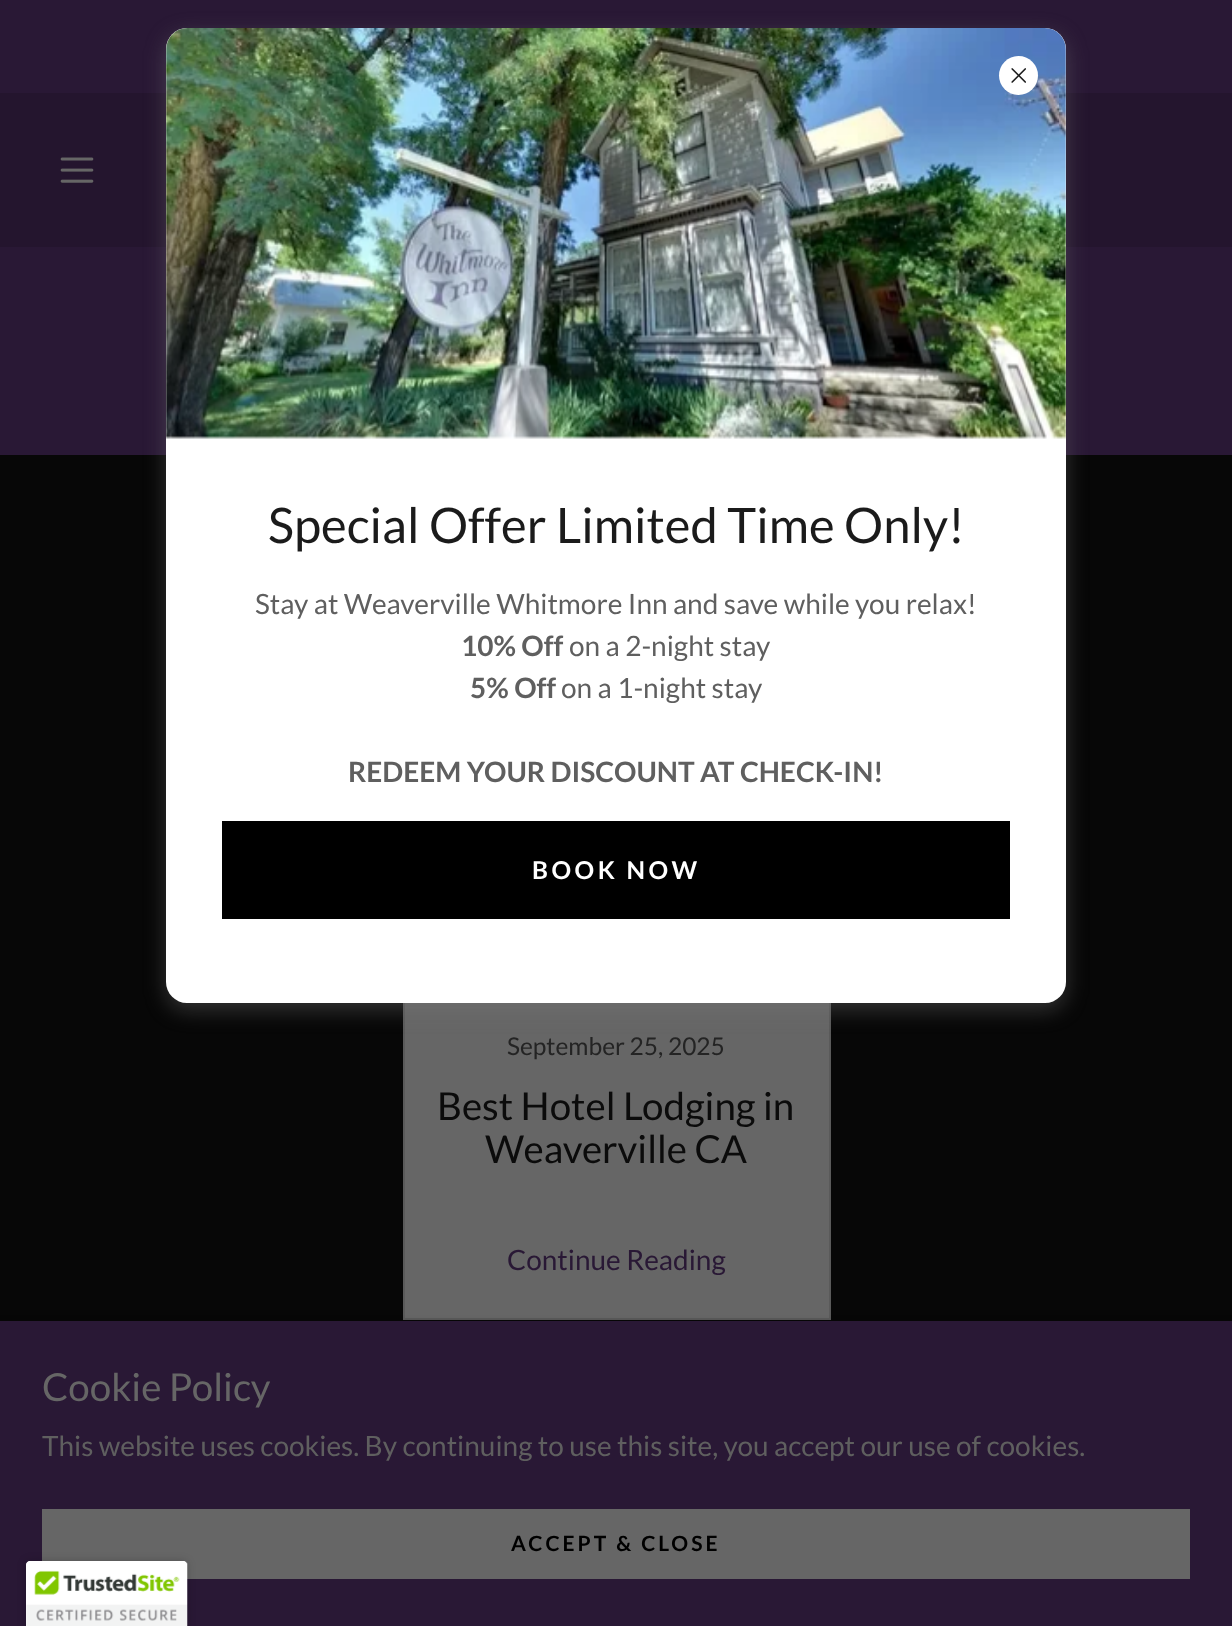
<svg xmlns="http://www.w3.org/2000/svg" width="1232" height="1626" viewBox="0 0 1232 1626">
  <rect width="100%" height="100%" fill="rgb(41,24,53)"/>
  <rect x="0" y="93" width="1232" height="154" fill="rgb(36,21,46)"/>
  <image x="60" y="157" width="34" height="26" href="pic1.png"/>
  <rect x="0" y="455" width="1232" height="866" fill="rgb(7,7,7)"/>
  <rect x="405" y="1003" width="424" height="315" fill="rgb(102,102,102)"/>
  <rect x="404" y="743" width="426" height="576" fill="none" stroke="rgb(90,90,90)" stroke-width="2"/>
  <rect x="166" y="35" width="900" height="975" rx="21" fill="rgba(117,117,117,0.4)" filter="blur(10.5px)"/>
  <rect x="166" y="28" width="900" height="975" rx="21" fill="rgb(255,255,255)"/>
  <image x="166" y="28" width="900" height="411" href="pic3.png"/>
  <circle cx="1018.5" cy="75.5" r="19.5" fill="rgb(255,255,255)"/>
  <image x="1011" y="68" width="15" height="15" href="pic2.png"/>
  <text x="268" y="543" font-family="Lato" font-size="49" fill="rgb(27,27,27)">Special Offer Limited Time Only!</text>
  <text x="255" y="614" font-family="Lato" font-size="28" fill="rgb(95,95,95)">Stay at Weaverville Whitmore Inn and save while you relax!</text>
  <text x="461" y="656" font-family="Lato" font-size="28" font-weight="bold" fill="rgb(95,95,95)">10% Off</text>
  <text x="569" y="656" font-family="Lato" font-size="28" fill="rgb(95,95,95)">on a 2-night stay</text>
  <text x="470" y="698" font-family="Lato" font-size="28" font-weight="bold" fill="rgb(95,95,95)">5% Off</text>
  <text x="561" y="698" font-family="Lato" font-size="28" fill="rgb(95,95,95)">on a 1-night stay</text>
  <text x="348" y="782" font-family="Lato" font-size="28" font-weight="bold" fill="rgb(95,95,95)">REDEEM YOUR DISCOUNT AT CHECK-IN!</text>
  <rect x="222" y="821" width="788" height="98" fill="rgb(0,0,0)"/>
  <text x="532" y="879" font-family="Lato" font-size="24.5" font-weight="bold" letter-spacing="3.5" fill="rgb(255,255,255)">BOOK NOW</text>
  <text x="507" y="1055" font-family="Lato" font-size="24.5" fill="rgb(36,36,36)">September 25, 2025</text>
  <g font-family="Lato" font-size="38.5" fill="rgb(11,11,11)">
    <text x="437" y="1120">Best Hotel Lodging in</text>
    <text x="485" y="1163">Weaverville CA</text>
  </g>
  <text x="507" y="1270" font-family="Lato" font-size="28" fill="rgb(41,24,53)">Continue Reading</text>
  <rect x="0" y="1325" width="1232" height="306" fill="rgba(0,0,0,0.3)" filter="blur(5px)"/>
  <rect x="0" y="1321" width="1232" height="305" fill="rgb(41,24,53)"/>
  <text x="42" y="1401" font-family="Lato" font-size="38.5" fill="rgb(102,102,102)">Cookie Policy</text>
  <text x="42" y="1456" font-family="Lato" font-size="28" fill="rgb(95,95,95)">This website uses cookies. By continuing to use this site, you accept our use of cookies.</text>
  <rect x="42" y="1509" width="1148" height="70" fill="rgb(102,102,102)"/>
  <text x="511" y="1551" font-family="Lato" font-size="21" font-weight="bold" letter-spacing="3" fill="rgb(0,0,0)">ACCEPT &amp; CLOSE</text>
  <rect x="26" y="1561" width="161" height="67" rx="4" fill="rgba(0,0,0,0.2)" filter="blur(4.5px)"/>
  <path d="M30 1561H183C185 1561 187 1563 187 1565V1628H26V1565C26 1563 28 1561 30 1561Z" fill="rgb(255,255,255)"/>
  <image x="26" y="1561" width="162" height="65" href="pic4.png"/>
</svg>
